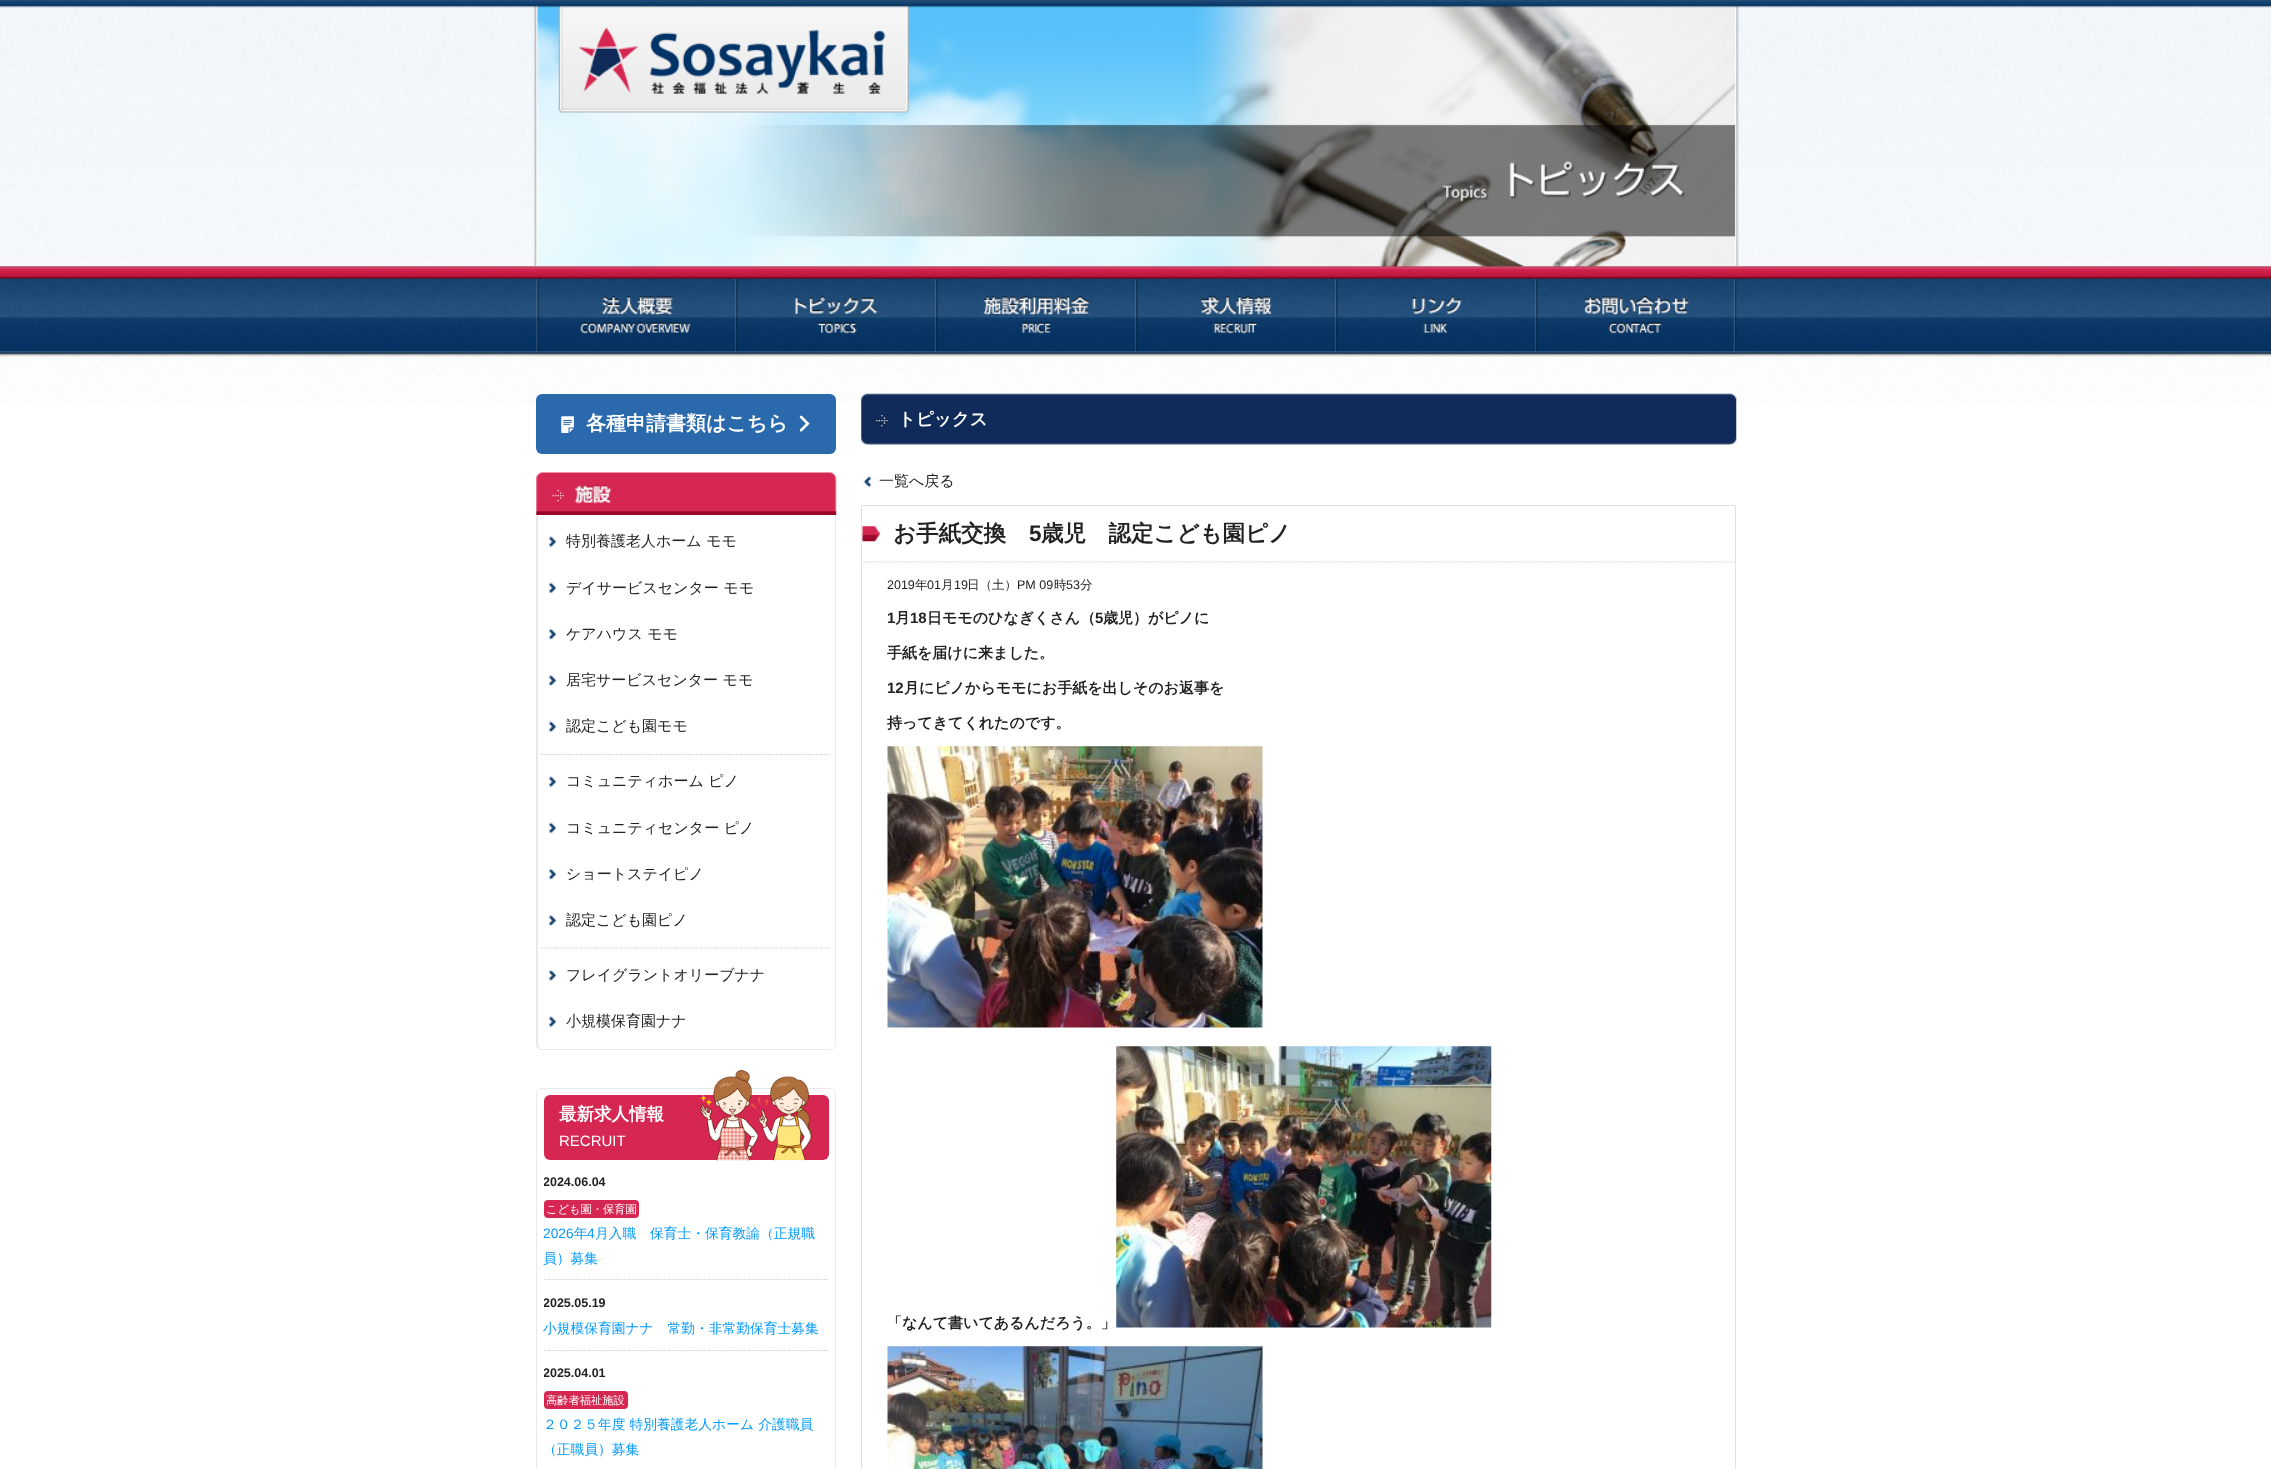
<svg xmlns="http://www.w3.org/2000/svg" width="2271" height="1469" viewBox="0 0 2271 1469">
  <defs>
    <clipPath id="clip1"><path d="M544 1160H829V1464C829 1467.5 826.5 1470 823 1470H550C546.5 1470 544 1467.5 544 1464Z"/></clipPath>
  </defs>
  <rect width="100%" height="100%" fill="rgb(255,255,255)"/>
  <image x="0" y="0" width="2271" height="405" href="pic1.png"/>
  <image x="0" y="266" width="2271" height="91" href="pic4.png"/>
  <image x="536" y="266" width="201" height="91" href="pic5.png"/>
  <image x="736" y="266" width="201" height="91" href="pic6.png"/>
  <image x="936" y="266" width="201" height="91" href="pic7.png"/>
  <image x="1136" y="266" width="201" height="91" href="pic8.png"/>
  <image x="1336" y="266" width="201" height="91" href="pic9.png"/>
  <image x="1536" y="266" width="201" height="91" href="pic10.png"/>
  <image x="533" y="0" width="1206" height="267" href="pic2.png"/>
  <image x="558" y="5" width="351" height="108" href="pic3.png"/>
  <rect x="536" y="394" width="300" height="60" rx="6" fill="rgb(42,105,172)"/>
  <image x="561" y="416" width="13" height="17" href="pic11.png"/>
  <text x="586" y="430" font-family="WenQuanYi Zen Hei" font-size="20" font-weight="bold" fill="rgb(255,255,255)">各種申請書類はこちら</text>
  <image x="799" y="415" width="11" height="17" href="pic12.png"/>
  <image x="536" y="472" width="301" height="43" href="pic13.png"/>
  <path d="M536 515H836V1044C836 1047 833 1050 830 1050H542C539 1050 536 1047 536 1044ZM538 515H835V1044C835 1047 833 1049 830 1049H542C540 1049 538 1047 538 1044Z" fill="rgb(233,233,233)" fill-rule="evenodd"/>
  <image x="548" y="536" width="9" height="12" href="pic14.png"/>
  <text x="566" y="546" font-family="WenQuanYi Zen Hei" font-size="15" font-weight="500" fill="rgb(34,34,34)">特別養護老人ホーム モモ</text>
  <image x="548" y="582" width="9" height="12" href="pic15.png"/>
  <text x="566" y="593" font-family="WenQuanYi Zen Hei" font-size="15" font-weight="500" fill="rgb(34,34,34)">デイサービスセンター モモ</text>
  <image x="548" y="628" width="9" height="12" href="pic16.png"/>
  <text x="566" y="639" font-family="WenQuanYi Zen Hei" font-size="15" font-weight="500" fill="rgb(34,34,34)">ケアハウス モモ</text>
  <image x="548" y="675" width="9" height="11" href="pic17.png"/>
  <text x="566" y="685" font-family="WenQuanYi Zen Hei" font-size="15" font-weight="500" fill="rgb(34,34,34)">居宅サービスセンター モモ</text>
  <image x="548" y="721" width="9" height="12" href="pic14.png"/>
  <text x="566" y="731" font-family="WenQuanYi Zen Hei" font-size="15" font-weight="500" fill="rgb(34,34,34)">認定こども園モモ</text>
  <path d="M541 754.5H831" fill="none" stroke="rgb(204,204,204)" stroke-width="1.2" stroke-dasharray="1.25 1.25"/>
  <image x="548" y="776" width="9" height="12" href="pic18.png"/>
  <text x="566" y="786" font-family="WenQuanYi Zen Hei" font-size="15" font-weight="500" fill="rgb(34,34,34)">コミュニティホーム ピノ</text>
  <image x="548" y="822" width="9" height="12" href="pic19.png"/>
  <text x="566" y="833" font-family="WenQuanYi Zen Hei" font-size="15" font-weight="500" fill="rgb(34,34,34)">コミュニティセンター ピノ</text>
  <image x="548" y="868" width="9" height="12" href="pic16.png"/>
  <text x="566" y="879" font-family="WenQuanYi Zen Hei" font-size="15" font-weight="500" fill="rgb(34,34,34)">ショートステイピノ</text>
  <image x="548" y="915" width="9" height="11" href="pic17.png"/>
  <text x="566" y="925" font-family="WenQuanYi Zen Hei" font-size="15" font-weight="500" fill="rgb(34,34,34)">認定こども園ピノ</text>
  <path d="M541 948H831" fill="none" stroke="rgb(204,204,204)" stroke-width="1.2" stroke-dasharray="1.25 1.25"/>
  <image x="548" y="970" width="9" height="11" href="pic17.png"/>
  <text x="566" y="980" font-family="WenQuanYi Zen Hei" font-size="15" font-weight="500" fill="rgb(34,34,34)">フレイグラントオリーブナナ</text>
  <image x="548" y="1016" width="9" height="12" href="pic14.png"/>
  <text x="566" y="1026" font-family="WenQuanYi Zen Hei" font-size="15" font-weight="500" fill="rgb(34,34,34)">小規模保育園ナナ</text>
  <rect x="536.5" y="1088.5" width="299" height="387" rx="5.5" fill="none" stroke="rgb(233,233,233)"/>
  <rect x="544" y="1095" width="285" height="65" rx="6" fill="rgb(213,39,82)"/>
  <text x="559" y="1120" font-family="WenQuanYi Zen Hei" font-size="17.5" font-weight="bold" fill="rgb(255,255,255)">最新求人情報</text>
  <image x="700" y="1070" width="112" height="91" href="pic20.png"/>
  <text x="559" y="1146" font-family="Liberation Sans" font-size="15" fill="rgb(255,255,255)">RECRUIT</text>
  <path d="M544 1279.5H829" fill="none" stroke="rgb(204,204,204)" stroke-width="1.2" stroke-dasharray="1.25 1.25"/>
  <g clip-path="url(#clip1)">
    <text x="543" y="1186" font-family="Liberation Sans" font-size="12.5" font-weight="bold" fill="rgb(34,34,34)">2024.06.04</text>
  </g>
  <rect x="544" y="1200" width="95" height="18" rx="4" fill="rgb(213,39,82)"/>
  <text x="546" y="1213" font-family="WenQuanYi Zen Hei" font-size="11.25" font-weight="500" fill="rgb(255,255,255)">こども園・保育園</text>
  <text x="543" y="1238" font-family="Liberation Sans" font-size="13.75" fill="rgb(0,153,255)">2026</text>
  <text x="574" y="1238" font-family="WenQuanYi Zen Hei" font-size="13.75" font-weight="500" fill="rgb(0,153,255)">年</text>
  <text x="587" y="1238" font-family="Liberation Sans" font-size="13.75" fill="rgb(0,153,255)">4</text>
  <g font-family="WenQuanYi Zen Hei" font-size="13.75" font-weight="500" fill="rgb(0,153,255)">
    <text x="595" y="1238">月入職　保育士・保育教諭（正規職</text>
    <text x="543" y="1263">員）募集</text>
  </g>
  <path d="M544 1350.5H829" fill="none" stroke="rgb(204,204,204)" stroke-width="1.2" stroke-dasharray="1.25 1.25"/>
  <g clip-path="url(#clip1)">
    <text x="543" y="1307" font-family="Liberation Sans" font-size="12.5" font-weight="bold" fill="rgb(34,34,34)">2025.05.19</text>
  </g>
  <text x="543" y="1333" font-family="WenQuanYi Zen Hei" font-size="13.75" font-weight="500" fill="rgb(0,153,255)">小規模保育園ナナ　常勤・非常勤保育士募集</text>
  <g clip-path="url(#clip1)">
    <text x="543" y="1377" font-family="Liberation Sans" font-size="12.5" font-weight="bold" fill="rgb(34,34,34)">2025.04.01</text>
  </g>
  <rect x="544" y="1391" width="84" height="18" rx="4" fill="rgb(213,39,82)"/>
  <text x="546" y="1404" font-family="WenQuanYi Zen Hei" font-size="11.25" font-weight="500" fill="rgb(255,255,255)">高齢者福祉施設</text>
  <g font-family="WenQuanYi Zen Hei" font-size="13.75" font-weight="500" fill="rgb(0,153,255)">
    <text>
      <tspan x="543" y="1429">２０２５年度 特別養護老人ホーム 介護職員</tspan>
      <tspan x="543" y="1454">（正職員）募集</tspan>
    </text>
  </g>
  <image x="861" y="393" width="876" height="52" href="pic21.png"/>
  <text x="898" y="425" font-family="WenQuanYi Zen Hei" font-size="17.5" font-weight="bold" fill="rgb(255,255,255)">トピックス</text>
  <image x="863" y="476" width="9" height="12" href="pic22.png"/>
  <text x="879" y="486" font-family="WenQuanYi Zen Hei" font-size="15" font-weight="500" fill="rgb(34,34,34)">一覧へ戻る</text>
  <image x="862" y="526" width="18" height="16" href="pic23.png"/>
  <rect x="861" y="505" width="875" height="1" fill="rgb(225,225,225)"/>
  <rect x="1735" y="505" width="1" height="964" fill="rgb(225,225,225)"/>
  <path d="M861 562H1736" fill="none" stroke="rgb(204,204,204)" stroke-width="1.2" stroke-dasharray="1.25 1.25"/>
  <rect x="861" y="505" width="1" height="964" fill="rgb(225,225,225)"/>
  <text x="893" y="541" font-family="WenQuanYi Zen Hei" font-size="22.5" font-weight="bold" fill="rgb(34,34,34)">お手紙交換</text>
  <text x="1029" y="541" font-family="Liberation Sans" font-size="22.5" font-weight="bold" fill="rgb(34,34,34)">5</text>
  <text x="1041" y="541" font-family="WenQuanYi Zen Hei" font-size="22.5" font-weight="bold" fill="rgb(34,34,34)">歳児　認定こども園ピノ</text>
  <text x="887" y="589" font-family="Liberation Sans" font-size="12.5" fill="rgb(34,34,34)">2019</text>
  <text x="915" y="589" font-family="WenQuanYi Zen Hei" font-size="12.5" font-weight="500" fill="rgb(34,34,34)">年</text>
  <text x="927" y="589" font-family="Liberation Sans" font-size="12.5" fill="rgb(34,34,34)">01</text>
  <text x="941" y="589" font-family="WenQuanYi Zen Hei" font-size="12.5" font-weight="500" fill="rgb(34,34,34)">月</text>
  <text x="954" y="589" font-family="Liberation Sans" font-size="12.5" fill="rgb(34,34,34)">19</text>
  <text x="967" y="589" font-family="WenQuanYi Zen Hei" font-size="12.5" font-weight="500" fill="rgb(34,34,34)">日（土）</text>
  <text x="1017" y="589" font-family="Liberation Sans" font-size="12.5" fill="rgb(34,34,34)">PM 09</text>
  <text x="1054" y="589" font-family="WenQuanYi Zen Hei" font-size="12.5" font-weight="500" fill="rgb(34,34,34)">時</text>
  <text x="1066" y="589" font-family="Liberation Sans" font-size="12.5" fill="rgb(34,34,34)">53</text>
  <text x="1080" y="589" font-family="WenQuanYi Zen Hei" font-size="12.5" font-weight="500" fill="rgb(34,34,34)">分</text>
  <text x="887" y="623" font-family="Liberation Sans" font-size="15" font-weight="bold" fill="rgb(34,34,34)">1</text>
  <text x="895" y="623" font-family="WenQuanYi Zen Hei" font-size="15" font-weight="bold" fill="rgb(34,34,34)">月</text>
  <text x="910" y="623" font-family="Liberation Sans" font-size="15" font-weight="bold" fill="rgb(34,34,34)">18</text>
  <text x="927" y="623" font-family="WenQuanYi Zen Hei" font-size="15" font-weight="bold" fill="rgb(34,34,34)">日モモのひなぎくさん（</text>
  <text x="1095" y="623" font-family="Liberation Sans" font-size="15" font-weight="bold" fill="rgb(34,34,34)">5</text>
  <g font-family="WenQuanYi Zen Hei" font-size="15" font-weight="bold" fill="rgb(34,34,34)">
    <text x="1103" y="623">歳児）がピノに</text>
    <text x="887" y="658">手紙を届けに来ました。</text>
  </g>
  <text x="887" y="693" font-family="Liberation Sans" font-size="15" font-weight="bold" fill="rgb(34,34,34)">12</text>
  <g font-family="WenQuanYi Zen Hei" font-size="15" font-weight="bold" fill="rgb(34,34,34)">
    <text x="904" y="693">月にピノからモモにお手紙を出しそのお返事を</text>
    <text x="887" y="728">持ってきてくれたのです。</text>
  </g>
  <image x="887" y="746" width="376" height="282" href="pic24.png"/>
  <text x="887" y="1328" font-family="WenQuanYi Zen Hei" font-size="15" font-weight="bold" fill="rgb(34,34,34)">「なんて書いてあるんだろう。」</text>
  <image x="1116" y="1046" width="376" height="282" href="pic25.png"/>
  <image x="887" y="1346" width="376" height="123" href="pic26.png"/>
</svg>
